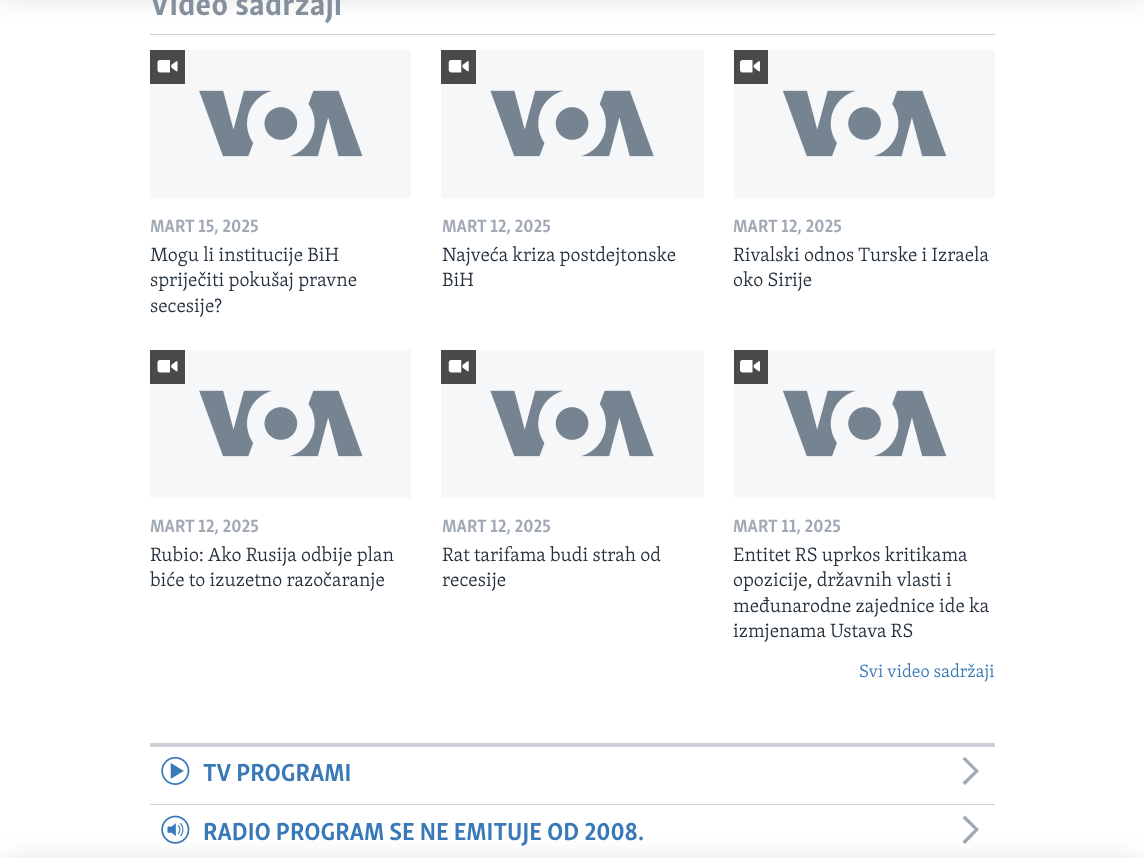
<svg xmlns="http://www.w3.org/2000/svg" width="1144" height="858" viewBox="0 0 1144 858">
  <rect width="100%" height="100%" fill="rgb(255,255,255)"/>
  <rect x="150" y="34" width="845" height="1" fill="rgb(203,209,214)"/>
  <rect x="0" y="-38" width="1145" height="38" fill="rgba(0,0,0,0.1)" filter="blur(12.5px)"/>
  <image x="161" y="815" width="29" height="29" href="pic8.png"/>
  <path d="M965 844L979 829.5L965 815.5L962.5 818L974.5 829.5L962.5 841.5Z" fill="rgb(161,170,180)"/>
  <rect x="0" y="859" width="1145" height="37" fill="rgba(0,0,0,0.1)" filter="blur(12.5px)"/>
  <text x="150" y="15" font-family="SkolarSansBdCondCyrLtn" font-size="33.75" font-weight="bold" fill="rgb(132,145,157)">Video sadržaji</text>
  <rect x="150" y="50" width="261" height="148" fill="rgb(246,247,248)"/>
  <image x="199" y="90" width="164" height="67" href="pic1.png"/>
  <rect x="150" y="50" width="35" height="34" fill="rgb(74,74,74)"/>
  <image x="157" y="60" width="21" height="13" href="pic2.png"/>
  <text x="150" y="232" font-family="SkolarSansBdCondCyrLtn" font-size="18.25" font-weight="bold" fill="rgb(161,170,180)">MART 15, 2025</text>
  <g font-family="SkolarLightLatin" font-size="19.75" font-weight="300" fill="rgb(34,47,58)">
    <text>
      <tspan x="150" y="261">Mogu li institucije BiH</tspan>
      <tspan x="150" y="286">spriječiti pokušaj pravne</tspan>
      <tspan x="150" y="312">secesije?</tspan>
    </text>
  </g>
  <rect x="441" y="50" width="263" height="148" fill="rgb(246,247,248)"/>
  <image x="490" y="90" width="164" height="67" href="pic3.png"/>
  <rect x="441" y="50" width="35" height="34" fill="rgb(74,74,74)"/>
  <image x="448" y="60" width="21" height="13" href="pic4.png"/>
  <text x="442" y="232" font-family="SkolarSansBdCondCyrLtn" font-size="18.25" font-weight="bold" fill="rgb(161,170,180)">MART 12, 2025</text>
  <g font-family="SkolarLightLatin" font-size="19.75" font-weight="300" fill="rgb(34,47,58)">
    <text>
      <tspan x="442" y="261">Najveća kriza postdejtonske</tspan>
      <tspan x="442" y="286">BiH</tspan>
    </text>
  </g>
  <rect x="734" y="50" width="261" height="148" fill="rgb(246,247,248)"/>
  <image x="783" y="90" width="164" height="67" href="pic5.png"/>
  <rect x="734" y="50" width="34" height="34" fill="rgb(74,74,74)"/>
  <image x="740" y="60" width="20" height="13" href="pic6.png"/>
  <text x="733" y="232" font-family="SkolarSansBdCondCyrLtn" font-size="18.25" font-weight="bold" fill="rgb(161,170,180)">MART 12, 2025</text>
  <g font-family="SkolarLightLatin" font-size="19.75" font-weight="300" fill="rgb(34,47,58)">
    <text>
      <tspan x="733" y="261">Rivalski odnos Turske i Izraela</tspan>
      <tspan x="733" y="286">oko Sirije</tspan>
    </text>
  </g>
  <rect x="150" y="350" width="261" height="148" fill="rgb(246,247,248)"/>
  <image x="199" y="390" width="164" height="67" href="pic1.png"/>
  <rect x="150" y="350" width="35" height="34" fill="rgb(74,74,74)"/>
  <image x="157" y="360" width="21" height="13" href="pic2.png"/>
  <text x="150" y="532" font-family="SkolarSansBdCondCyrLtn" font-size="18.25" font-weight="bold" fill="rgb(161,170,180)">MART 12, 2025</text>
  <g font-family="SkolarLightLatin" font-size="19.75" font-weight="300" fill="rgb(34,47,58)">
    <text>
      <tspan x="150" y="561">Rubio: Ako Rusija odbije plan</tspan>
      <tspan x="150" y="586">biće to izuzetno razočaranje</tspan>
    </text>
  </g>
  <rect x="441" y="350" width="263" height="148" fill="rgb(246,247,248)"/>
  <image x="490" y="390" width="164" height="67" href="pic3.png"/>
  <rect x="441" y="350" width="35" height="34" fill="rgb(74,74,74)"/>
  <image x="448" y="360" width="21" height="13" href="pic4.png"/>
  <text x="442" y="532" font-family="SkolarSansBdCondCyrLtn" font-size="18.25" font-weight="bold" fill="rgb(161,170,180)">MART 12, 2025</text>
  <g font-family="SkolarLightLatin" font-size="19.75" font-weight="300" fill="rgb(34,47,58)">
    <text>
      <tspan x="442" y="561">Rat tarifama budi strah od</tspan>
      <tspan x="442" y="586">recesije</tspan>
    </text>
  </g>
  <rect x="734" y="350" width="261" height="148" fill="rgb(246,247,248)"/>
  <image x="783" y="390" width="164" height="67" href="pic5.png"/>
  <rect x="734" y="350" width="34" height="34" fill="rgb(74,74,74)"/>
  <image x="740" y="360" width="20" height="13" href="pic6.png"/>
  <text x="733" y="532" font-family="SkolarSansBdCondCyrLtn" font-size="18.25" font-weight="bold" fill="rgb(161,170,180)">MART 11, 2025</text>
  <g font-family="SkolarLightLatin" font-size="19.75" font-weight="300" fill="rgb(34,47,58)">
    <text>
      <tspan x="733" y="561">Entitet RS uprkos kritikama</tspan>
      <tspan x="733" y="586">opozicije, državnih vlasti i</tspan>
      <tspan x="733" y="612">međunarodne zajednice ide ka</tspan>
      <tspan x="733" y="637">izmjenama Ustava RS</tspan>
    </text>
  </g>
  <text x="859" y="677" font-family="SkolarLightLatin" font-size="18.25" font-weight="300" fill="rgb(58,121,183)">Svi video sadržaji</text>
  <rect x="150" y="743" width="845" height="4" fill="rgb(203,209,214)"/>
  <rect x="150" y="804" width="845" height="1" fill="rgb(203,209,214)"/>
  <image x="161" y="756" width="29" height="29" href="pic7.png"/>
  <text x="203" y="781" font-family="SkolarSansBdCondCyrLtn" font-size="25.3" font-weight="bold" fill="rgb(58,121,183)">TV PROGRAMI</text>
  <path d="M965 785L979 771L965 757L962.5 759L974.5 771L962.5 782.5Z" fill="rgb(161,170,180)"/>
  <text x="203" y="840" font-family="SkolarSansBdCondCyrLtn" font-size="25.3" font-weight="bold" fill="rgb(58,121,183)">RADIO PROGRAM SE NE EMITUJE OD 2008.</text>
</svg>
